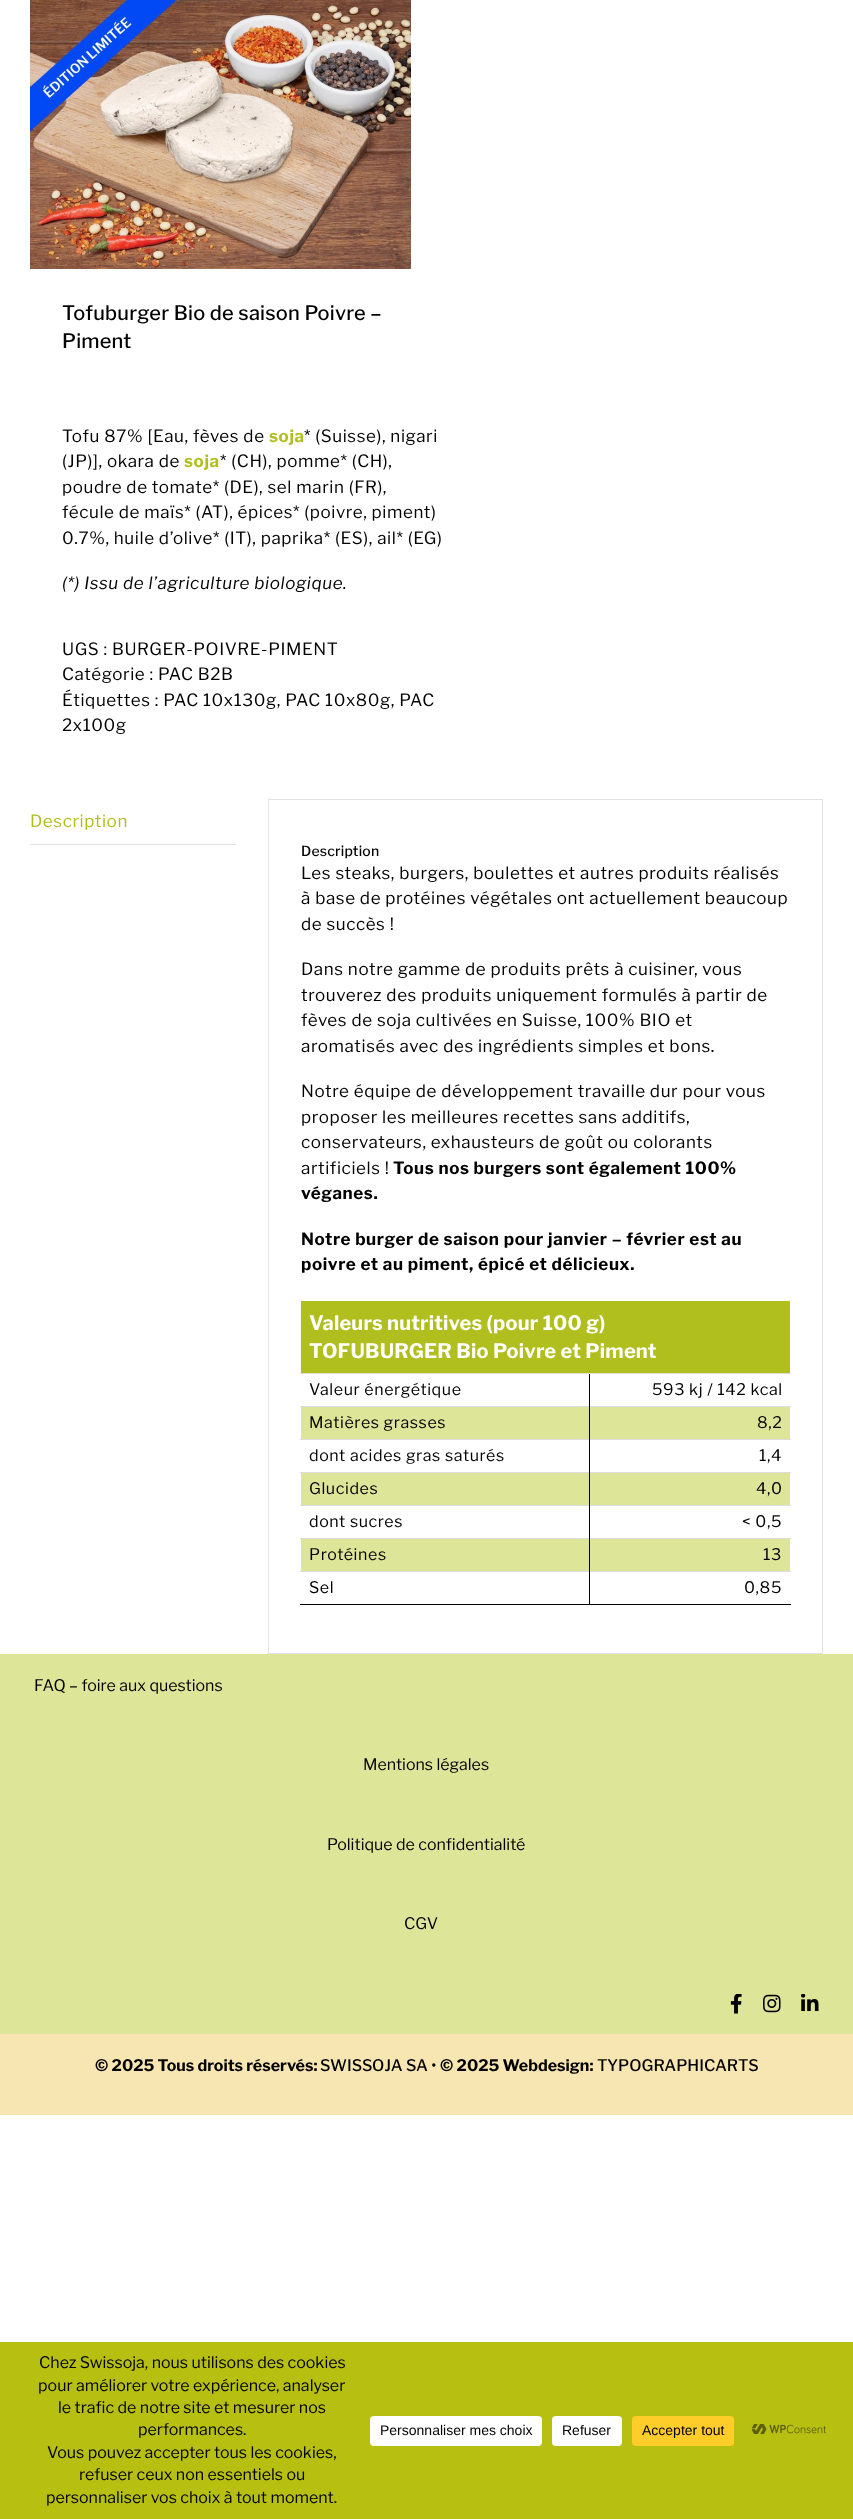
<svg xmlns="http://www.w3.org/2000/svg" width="853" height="2519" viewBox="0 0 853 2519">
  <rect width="100%" height="100%" fill="rgb(255,255,255)"/>
  <image x="30" y="0" width="381" height="269" href="pic1.png"/>
  <g font-family="Libre Franklin" font-size="20" font-weight="500" letter-spacing="0.2" fill="rgb(0,0,0)">
    <text>
      <tspan x="62" y="320">Tofuburger Bio de saison Poivre –</tspan>
      <tspan x="62" y="348">Piment</tspan>
    </text>
  </g>
  <text x="62" y="442" font-family="Libre Franklin" font-size="17" letter-spacing="0.6" fill="rgb(0,0,0)">Tofu 87% [Eau, fèves de</text>
  <text x="269" y="442" font-family="Libre Franklin" font-size="17" font-weight="bold" letter-spacing="0.6" fill="rgb(176,191,30)">soja</text>
  <g font-family="Libre Franklin" font-size="17" letter-spacing="0.6" fill="rgb(0,0,0)">
    <text x="304" y="442">* (Suisse), nigari</text>
    <text x="62" y="467">(JP)], okara de</text>
  </g>
  <text x="184" y="467" font-family="Libre Franklin" font-size="17" font-weight="bold" letter-spacing="0.6" fill="rgb(176,191,30)">soja</text>
  <g font-family="Libre Franklin" font-size="17" letter-spacing="0.6" fill="rgb(0,0,0)">
    <text x="220" y="467">* (CH), pomme* (CH),</text>
    <text>
      <tspan x="62" y="493">poudre de tomate* (DE), sel marin (FR),</tspan>
      <tspan x="62" y="518">fécule de maïs* (AT), épices* (poivre, piment)</tspan>
      <tspan x="62" y="544">0.7%, huile d’olive* (IT), paprika* (ES), ail* (EG)</tspan>
    </text>
  </g>
  <text x="62" y="589" font-family="Libre Franklin" font-size="17" font-style="italic" letter-spacing="0.6" fill="rgb(0,0,0)">(*) Issu de l’agriculture biologique.</text>
  <g font-family="Libre Franklin" font-size="17" letter-spacing="0.6" fill="rgb(0,0,0)">
    <text>
      <tspan x="62" y="655">UGS : BURGER-POIVRE-PIMENT</tspan>
      <tspan x="62" y="680">Catégorie : PAC B2B</tspan>
      <tspan x="62" y="706">Étiquettes : PAC 10x130g, PAC 10x80g, PAC</tspan>
      <tspan x="62" y="731">2x100g</tspan>
    </text>
  </g>
  <rect x="30" y="844" width="206" height="1" fill="rgb(226,226,226)"/>
  <text x="30" y="827" font-family="Libre Franklin" font-size="17" letter-spacing="0.6" fill="rgb(176,191,30)">Description</text>
  <rect x="268.5" y="799.5" width="554" height="854" fill="none" stroke="rgb(226,226,226)"/>
  <text x="301" y="856" font-family="Libre Franklin" font-size="14" font-weight="500" letter-spacing="0.2" fill="rgb(0,0,0)">Description</text>
  <g font-family="Libre Franklin" font-size="17" letter-spacing="0.6" fill="rgb(0,0,0)">
    <text>
      <tspan x="301" y="879">Les steaks, burgers, boulettes et autres produits réalisés</tspan>
      <tspan x="301" y="904">à base de protéines végétales ont actuellement beaucoup</tspan>
      <tspan x="301" y="930">de succès !</tspan>
    </text>
    <text>
      <tspan x="301" y="975">Dans notre gamme de produits prêts à cuisiner, vous</tspan>
      <tspan x="301" y="1001">trouverez des produits uniquement formulés à partir de</tspan>
      <tspan x="301" y="1026">fèves de soja cultivées en Suisse, 100% BIO et</tspan>
      <tspan x="301" y="1052">aromatisés avec des ingrédients simples et bons.</tspan>
    </text>
    <text>
      <tspan x="301" y="1097">Notre équipe de développement travaille dur pour vous</tspan>
      <tspan x="301" y="1123">proposer les meilleures recettes sans additifs,</tspan>
      <tspan x="301" y="1148">conservateurs, exhausteurs de goût ou colorants</tspan>
      <tspan x="301" y="1174">artificiels !</tspan>
    </text>
  </g>
  <g font-family="Libre Franklin" font-size="17" font-weight="bold" letter-spacing="0.6" fill="rgb(0,0,0)">
    <text x="393" y="1174">Tous nos burgers sont également 100%</text>
    <text x="301" y="1199">véganes.</text>
    <text>
      <tspan x="301" y="1245">Notre burger de saison pour janvier – février est au</tspan>
      <tspan x="301" y="1270">poivre et au piment, épicé et délicieux.</tspan>
    </text>
  </g>
  <rect x="301" y="1301" width="489" height="72" fill="rgb(176,191,30)"/>
  <g font-family="Libre Franklin" font-size="20" font-weight="bold" letter-spacing="0.2" fill="rgb(255,255,255)">
    <text>
      <tspan x="309" y="1330">Valeurs nutritives (pour 100 g)</tspan>
      <tspan x="309" y="1358">TOFUBURGER Bio Poivre et Piment</tspan>
    </text>
  </g>
  <rect x="589" y="1373" width="202" height="1" fill="rgb(221,221,221)"/>
  <rect x="589" y="1406" width="202" height="1" fill="rgb(221,221,221)"/>
  <rect x="589" y="1439" width="202" height="1" fill="rgb(221,221,221)"/>
  <rect x="589" y="1472" width="202" height="1" fill="rgb(221,221,221)"/>
  <rect x="589" y="1505" width="202" height="1" fill="rgb(221,221,221)"/>
  <rect x="589" y="1538" width="202" height="1" fill="rgb(221,221,221)"/>
  <rect x="589" y="1571" width="202" height="1" fill="rgb(221,221,221)"/>
  <rect x="300" y="1604" width="491" height="1" fill="rgb(0,0,0)"/>
  <rect x="589" y="1571" width="1" height="34" fill="rgb(0,0,0)"/>
  <rect x="300" y="1571" width="290" height="1" fill="rgb(221,221,221)"/>
  <rect x="589" y="1538" width="1" height="34" fill="rgb(0,0,0)"/>
  <rect x="300" y="1538" width="290" height="1" fill="rgb(221,221,221)"/>
  <rect x="589" y="1505" width="1" height="34" fill="rgb(0,0,0)"/>
  <rect x="300" y="1505" width="290" height="1" fill="rgb(221,221,221)"/>
  <rect x="589" y="1472" width="1" height="34" fill="rgb(0,0,0)"/>
  <rect x="300" y="1472" width="290" height="1" fill="rgb(221,221,221)"/>
  <rect x="589" y="1439" width="1" height="34" fill="rgb(0,0,0)"/>
  <rect x="300" y="1439" width="290" height="1" fill="rgb(221,221,221)"/>
  <rect x="589" y="1406" width="1" height="34" fill="rgb(0,0,0)"/>
  <rect x="300" y="1406" width="290" height="1" fill="rgb(221,221,221)"/>
  <rect x="589" y="1373" width="1" height="34" fill="rgb(0,0,0)"/>
  <rect x="300" y="1373" width="290" height="1" fill="rgb(221,221,221)"/>
  <g font-family="Libre Franklin" font-size="16" letter-spacing="0.6" fill="rgb(0,0,0)">
    <text x="309" y="1395">Valeur énergétique</text>
    <text x="652" y="1395">593 kj / 142 kcal</text>
  </g>
  <rect x="301" y="1407" width="288" height="32" fill="rgb(221,229,153)"/>
  <text x="309" y="1428" font-family="Libre Franklin" font-size="16" letter-spacing="0.6" fill="rgb(0,0,0)">Matières grasses</text>
  <rect x="590" y="1407" width="200" height="32" fill="rgb(221,229,153)"/>
  <g font-family="Libre Franklin" font-size="16" letter-spacing="0.6" fill="rgb(0,0,0)">
    <text x="757" y="1428">8,2</text>
    <text x="309" y="1461">dont acides gras saturés</text>
    <text x="759" y="1461">1,4</text>
  </g>
  <rect x="301" y="1473" width="288" height="32" fill="rgb(221,229,153)"/>
  <text x="309" y="1494" font-family="Libre Franklin" font-size="16" letter-spacing="0.6" fill="rgb(0,0,0)">Glucides</text>
  <rect x="590" y="1473" width="200" height="32" fill="rgb(221,229,153)"/>
  <g font-family="Libre Franklin" font-size="16" letter-spacing="0.6" fill="rgb(0,0,0)">
    <text x="756" y="1494">4,0</text>
    <text x="309" y="1527">dont sucres</text>
    <text x="742" y="1527">&lt; 0,5</text>
  </g>
  <rect x="301" y="1539" width="288" height="32" fill="rgb(221,229,153)"/>
  <text x="309" y="1560" font-family="Libre Franklin" font-size="16" letter-spacing="0.6" fill="rgb(0,0,0)">Protéines</text>
  <rect x="590" y="1539" width="200" height="32" fill="rgb(221,229,153)"/>
  <g font-family="Libre Franklin" font-size="16" letter-spacing="0.6" fill="rgb(0,0,0)">
    <text x="763" y="1560">13</text>
    <text x="309" y="1593">Sel</text>
    <text x="744" y="1593">0,85</text>
  </g>
  <rect x="0" y="1654" width="853" height="380" fill="rgb(221,229,153)"/>
  <g font-family="Libre Franklin" font-size="16" fill="rgb(0,0,0)">
    <text x="34" y="1691">FAQ – foire aux questions</text>
    <text x="363" y="1770">Mentions légales</text>
    <text x="327" y="1850">Politique de confidentialité</text>
    <text x="404" y="1929">CGV</text>
  </g>
  <image x="730" y="1994" width="12" height="20" href="pic2.png"/>
  <image x="763" y="1994" width="18" height="19" href="pic3.png"/>
  <image x="801" y="1994" width="18" height="17" href="pic4.png"/>
  <rect x="0" y="2034" width="853" height="81" fill="rgb(247,230,178)"/>
  <text x="95" y="2071" font-family="Libre Franklin" font-size="16" font-weight="bold" fill="rgb(0,0,0)">© 2025 Tous droits réservés:</text>
  <text x="320" y="2071" font-family="Libre Franklin" font-size="16" font-weight="500" fill="rgb(0,0,0)">SWISSOJA SA •</text>
  <text x="440" y="2071" font-family="Libre Franklin" font-size="16" font-weight="bold" fill="rgb(0,0,0)">© 2025 Webdesign:</text>
  <text x="597" y="2071" font-family="Libre Franklin" font-size="16" font-weight="500" fill="rgb(0,0,0)">TYPOGRAPHICARTS</text>
  <rect x="0" y="2342" width="853" height="177" fill="rgb(183,191,16)"/>
  <g font-family="Libre Franklin" font-size="16" fill="rgb(0,0,0)">
    <text x="39" y="2368">Chez Swissoja, nous utilisons des cookies</text>
    <text x="38" y="2391">pour améliorer votre expérience, analyser</text>
    <text x="58" y="2413">le trafic de notre site et mesurer nos</text>
    <text x="138" y="2435">performances.</text>
    <text x="47" y="2458">Vous pouvez accepter tous les cookies,</text>
    <text x="79" y="2480">refuser ceux non essentiels ou</text>
    <text x="46" y="2503">personnaliser vos choix à tout moment.</text>
  </g>
  <rect x="370" y="2416" width="172" height="30" rx="4" fill="rgb(255,255,255)"/>
  <text x="380" y="2435" font-family="Liberation Sans" font-size="14" fill="rgb(0,0,0)">Personnaliser mes choix</text>
  <rect x="552" y="2416" width="70" height="30" rx="4" fill="rgb(255,255,255)"/>
  <text x="562" y="2435" font-family="Liberation Sans" font-size="14" fill="rgb(0,0,0)">Refuser</text>
  <rect x="632" y="2416" width="102" height="30" rx="4" fill="rgb(255,205,42)"/>
  <text x="642" y="2435" font-family="Liberation Sans" font-size="14" fill="rgb(0,0,0)">Accepter tout</text>
  <image x="751" y="2424" width="75" height="11" href="pic5.png"/>
</svg>
